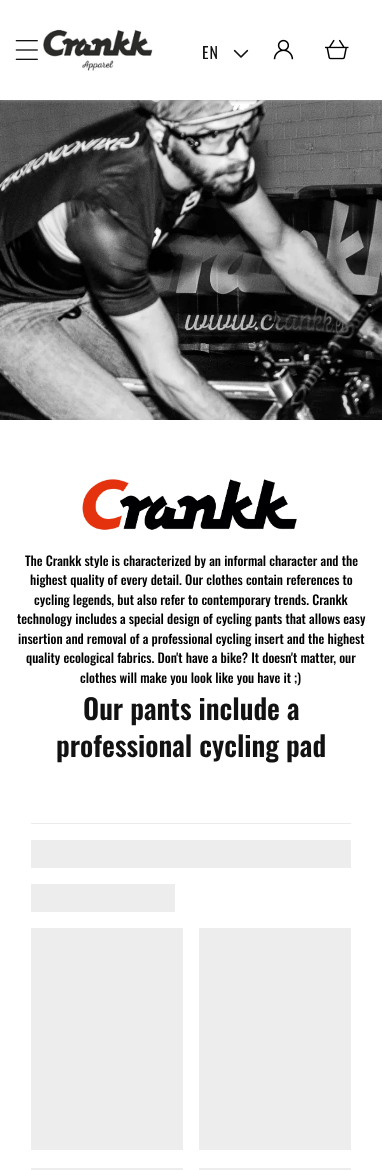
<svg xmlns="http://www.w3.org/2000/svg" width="382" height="1170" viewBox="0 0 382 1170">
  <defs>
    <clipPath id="clip1"><rect x="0" y="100" width="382" height="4"/></clipPath>
  </defs>
  <rect width="100%" height="100%" fill="rgb(255,255,255)"/>
  <image x="0" y="100" width="382" height="320" href="pic6.png"/>
  <g clip-path="url(#clip1)">
    <rect x="0" y="0" width="382" height="100" fill="rgb(157,157,157)" filter="blur(2px)"/>
  </g>
  <image x="15" y="40" width="23" height="20" href="pic1.png"/>
  <image x="43" y="29" width="110" height="42" href="pic2.png"/>
  <image x="273" y="39" width="21" height="21" href="pic3.png"/>
  <image x="325" y="39" width="24" height="21" href="pic4.png"/>
  <text x="202" y="59" font-family="Oswald" font-size="16" letter-spacing="1" fill="rgb(18,18,18)">EN</text>
  <image x="233" y="49" width="16" height="9" href="pic5.png"/>
  <image x="82" y="479" width="215" height="51" href="pic7.png"/>
  <g font-family="Oswald" font-size="13" font-weight="500" fill="rgb(0,0,0)">
    <text x="25" y="566">The Crankk style is characterized by an informal character and the</text>
    <text x="30" y="585">highest quality of every detail. Our clothes contain references to</text>
    <text x="34" y="605">cycling legends, but also refer to contemporary trends. Crankk</text>
    <text x="17" y="624">technology includes a special design of cycling pants that allows easy</text>
    <text x="18" y="644">insertion and removal of a professional cycling insert and the highest</text>
    <text x="26" y="663">quality ecological fabrics. Don't have a bike? It doesn't matter, our</text>
    <text x="80" y="683">clothes will make you look like you have it ;)</text>
  </g>
  <g font-family="Oswald" font-size="28" font-weight="600" fill="rgb(18,18,18)">
    <text x="83" y="720">Our pants include a</text>
    <text x="56" y="757">professional cycling pad</text>
  </g>
  <rect x="31" y="823" width="320" height="1" fill="rgb(235,235,235)"/>
  <rect x="31" y="840" width="320" height="28" fill="rgb(237,237,237)"/>
  <rect x="31" y="884" width="144" height="28" fill="rgb(237,237,237)"/>
  <rect x="31" y="928" width="152" height="222" fill="rgb(237,237,237)"/>
  <rect x="31" y="1168" width="152" height="2" fill="rgb(237,237,237)"/>
  <rect x="199" y="928" width="152" height="222" fill="rgb(237,237,237)"/>
  <rect x="199" y="1168" width="152" height="2" fill="rgb(237,237,237)"/>
</svg>
